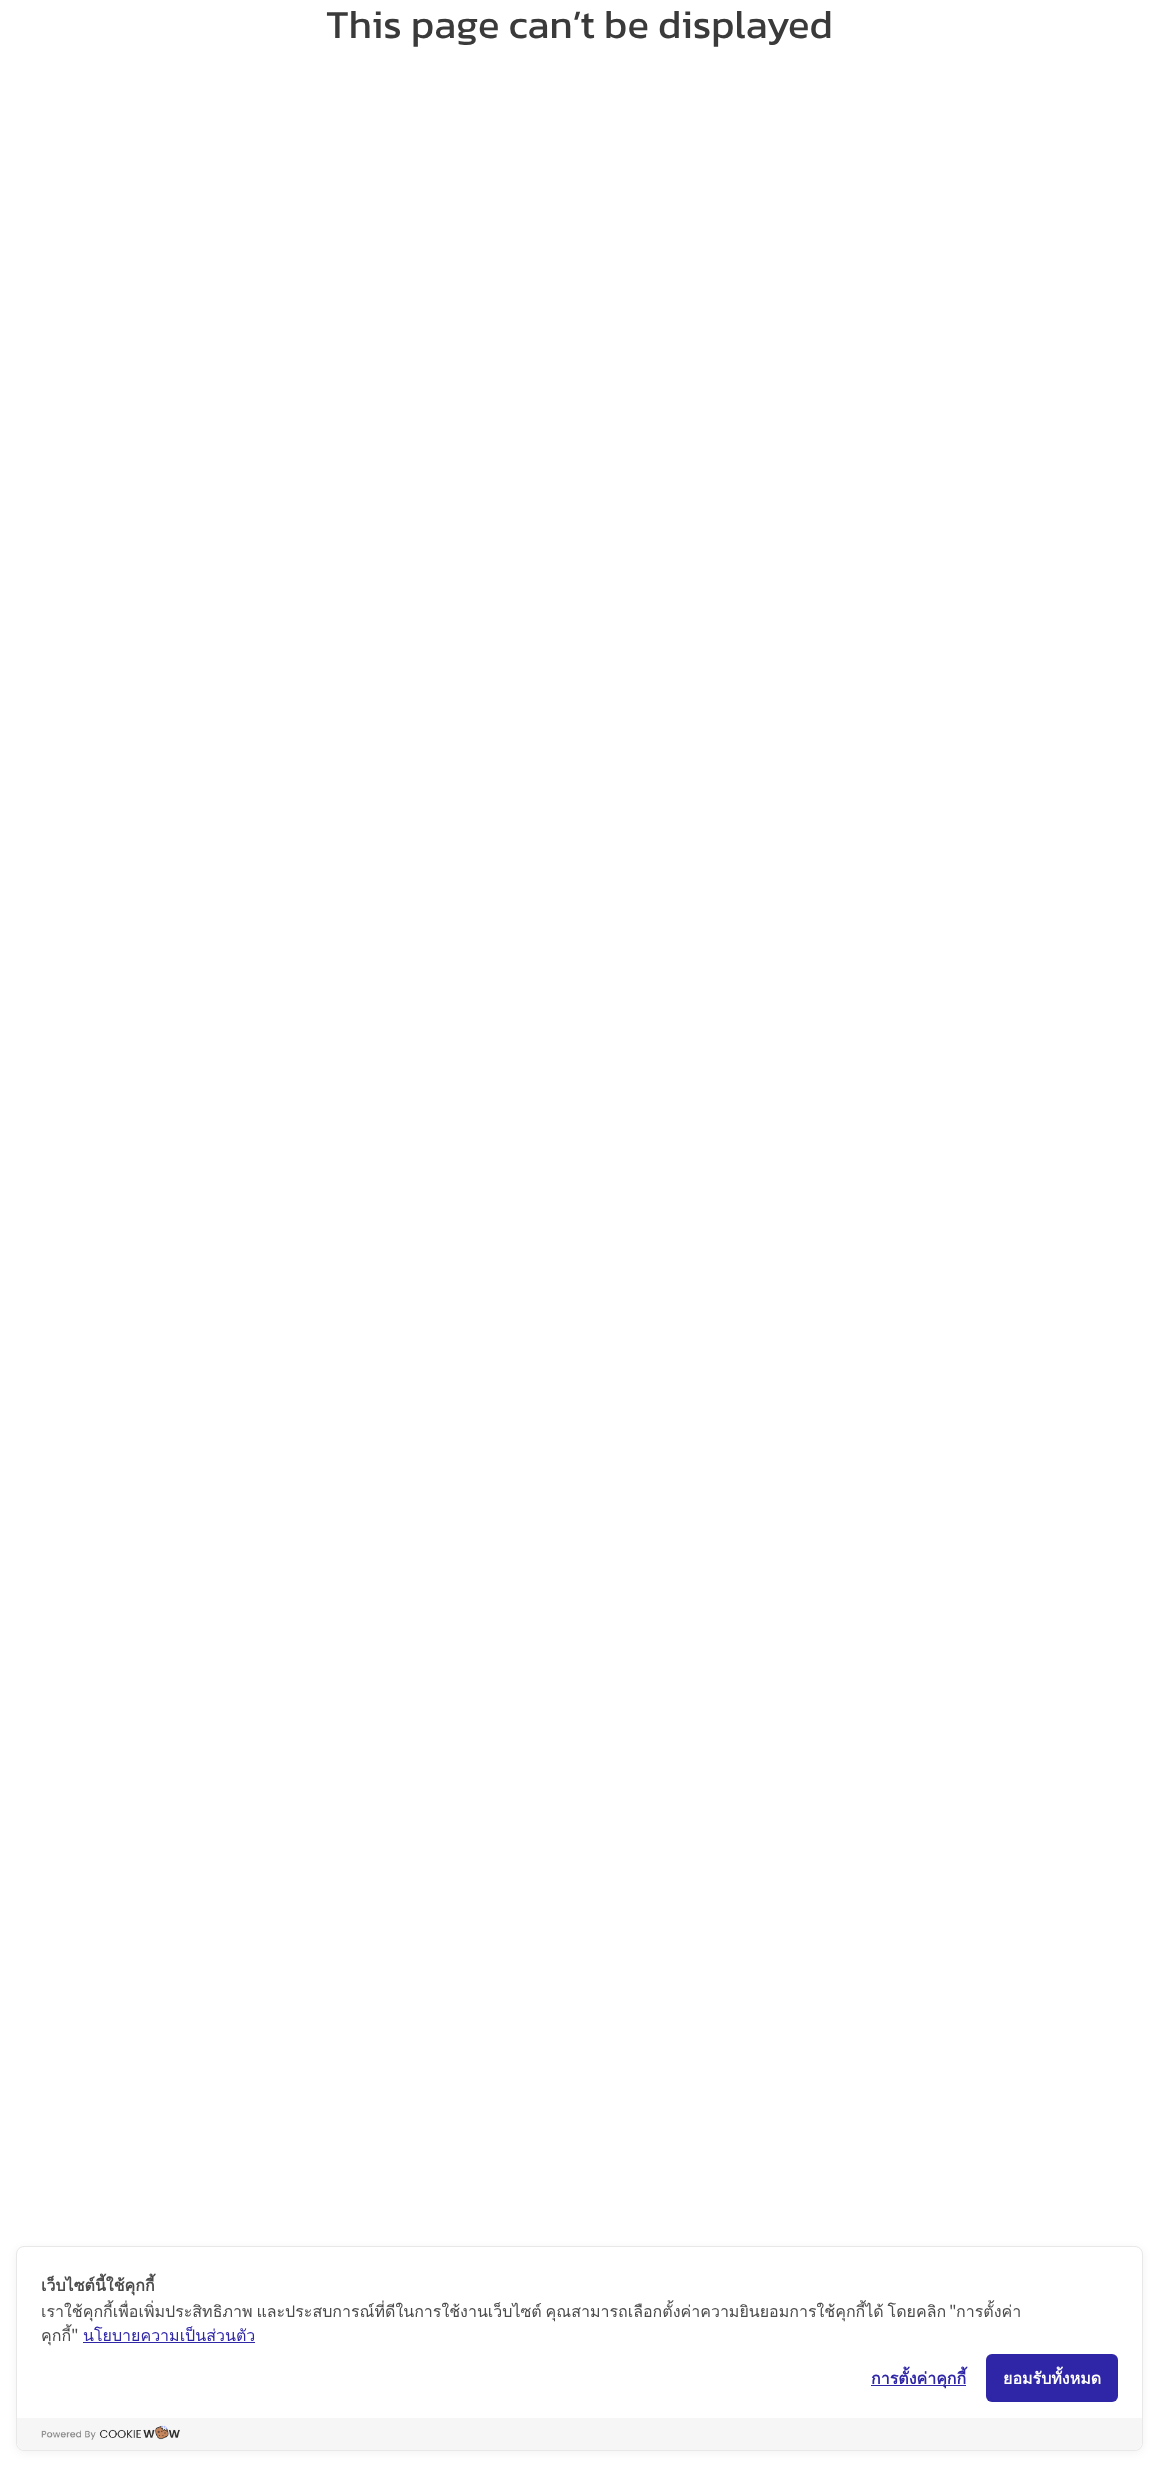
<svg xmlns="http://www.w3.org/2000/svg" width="1159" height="2467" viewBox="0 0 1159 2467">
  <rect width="100%" height="100%" fill="rgb(255,255,255)"/>
  <text x="326" y="38" font-family="Kanit" font-size="40" fill="rgb(58,58,58)">This page can’t be displayed</text>
  <rect x="16" y="2248" width="1127" height="205" rx="8" fill="rgba(0,0,0,0.05)" filter="blur(4px)"/>
  <rect x="16.5" y="2246.5" width="1126" height="204" rx="7.5" fill="rgb(255,255,255)" stroke="rgb(232,232,232)"/>
  <text x="41" y="2291" font-family="Loma" font-size="16" font-weight="bold" fill="rgb(74,74,74)">เว็บไซต์นี้ใช้คุกกี้</text>
  <text x="41" y="2317" word-spacing="-1.5" font-family="Loma" font-size="16" fill="rgb(74,74,74)">เราใช้คุกกี้เพื่อเพิ่มประสิทธิภาพ และประสบการณ์ที่ดีในการใช้งานเว็บไซต์ คุณสามารถเลือกตั้งค่าความยินยอมการใช้คุกกี้ได้ โดยคลิก</text>
  <text x="949" y="2317" font-family="Noto Sans JP" font-size="16" fill="rgb(74,74,74)">"</text>
  <g font-family="Loma" font-size="16" fill="rgb(74,74,74)">
    <text x="956" y="2317">การตั้งค่า</text>
    <text x="41" y="2341">คุกกี้</text>
  </g>
  <text x="71" y="2341" font-family="Noto Sans JP" font-size="16" fill="rgb(74,74,74)">"</text>
  <text x="83" y="2341" font-family="Loma" font-size="16" fill="rgb(46,38,166)">นโยบายความเป็นส่วนตัว</text>
  <rect x="83" y="2342" width="172" height="1" fill="rgb(46,38,166)"/>
  <rect x="871" y="2385" width="95" height="1" fill="rgb(46,38,166)"/>
  <text x="871" y="2384" font-family="Loma" font-size="16" font-weight="bold" fill="rgb(46,38,166)">การตั้งค่าคุกกี้</text>
  <rect x="986" y="2354" width="132" height="48" rx="6" fill="rgb(46,38,166)"/>
  <text x="1003" y="2384" font-family="Loma" font-size="16" font-weight="bold" fill="rgb(255,255,255)">ยอมรับทั้งหมด</text>
  <path d="M17 2418H1142V2442C1142 2446.5 1138.5 2450 1134 2450H25C20.5 2450 17 2446.5 17 2442Z" fill="rgb(246,246,246)"/>
  <image x="41" y="2425" width="139" height="15" href="pic1.png"/>
</svg>
